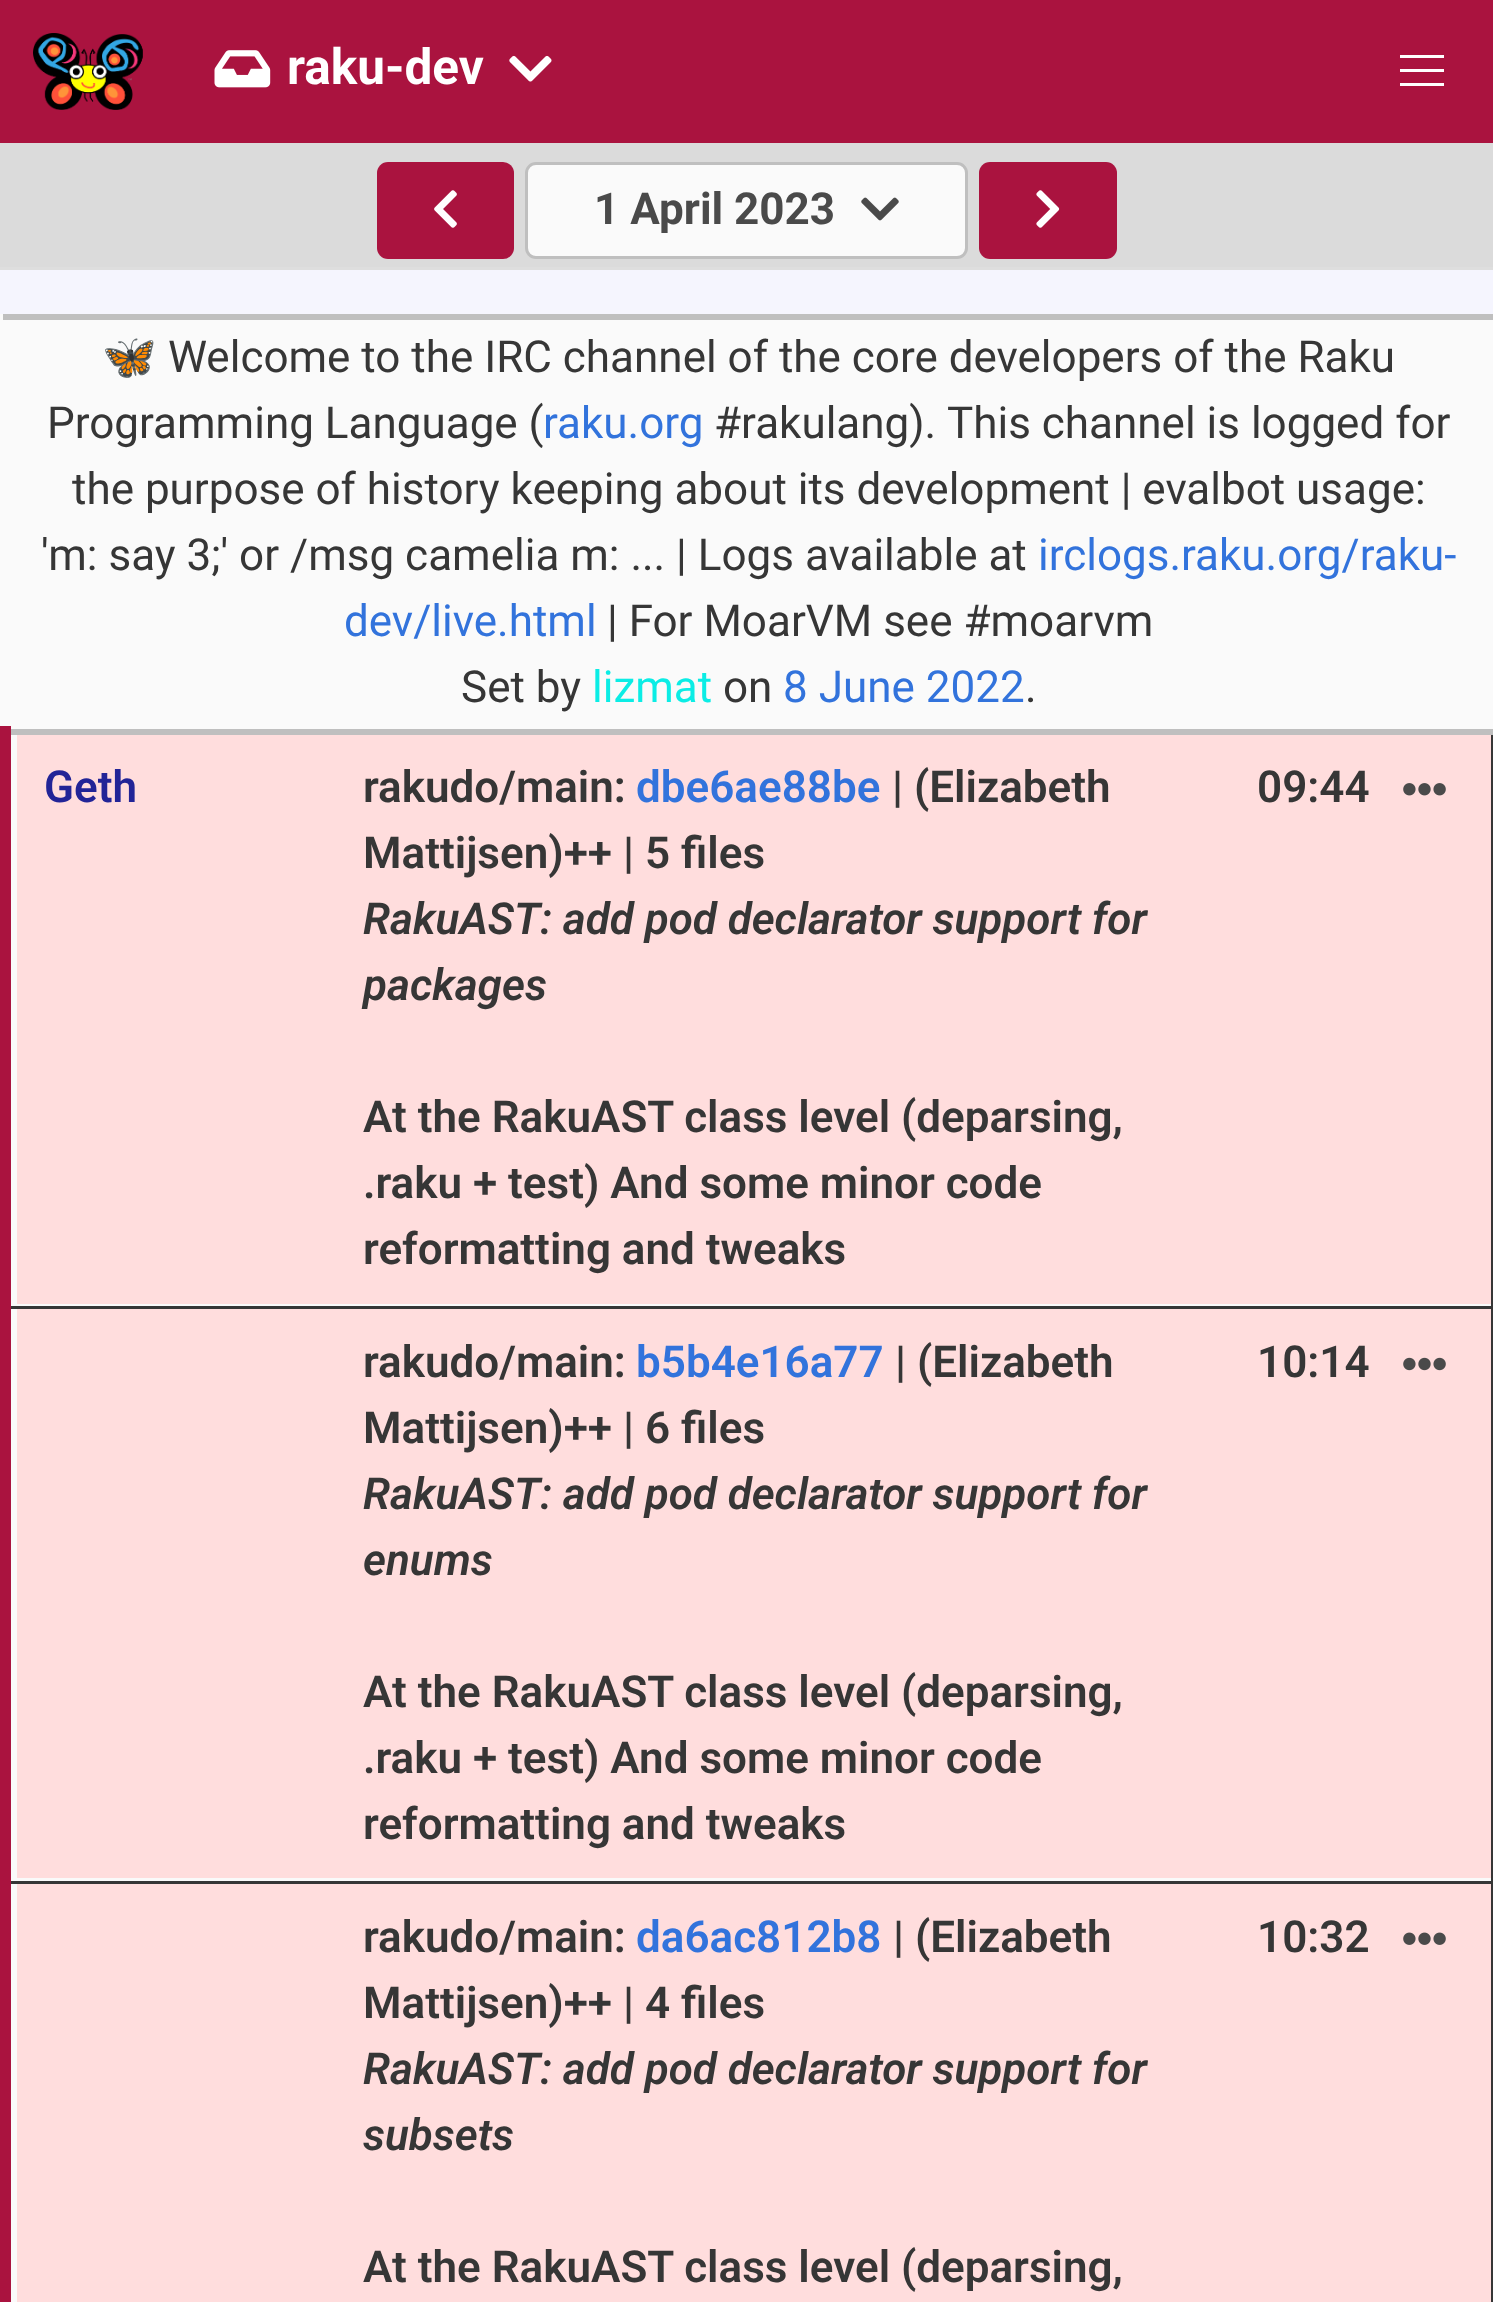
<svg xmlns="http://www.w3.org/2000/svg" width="1493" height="2302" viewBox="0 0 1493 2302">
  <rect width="100%" height="100%" fill="rgb(245,245,254)"/>
  <rect x="0" y="0" width="1493" height="143" fill="rgb(170,19,63)"/>
  <image x="33" y="33" width="110" height="77" href="pic1.png"/>
  <image x="214" y="50" width="57" height="38" href="pic2.png"/>
  <text x="287" y="84" font-family="Roboto" font-size="49.5" font-weight="bold" fill="rgb(255,255,255)">raku-dev</text>
  <image x="509" y="55" width="43" height="27" href="pic3.png"/>
  <rect x="1400" y="55" width="44" height="3" fill="rgb(255,255,255)"/>
  <rect x="1400" y="69" width="44" height="3" fill="rgb(255,255,255)"/>
  <rect x="1400" y="83" width="44" height="3" fill="rgb(255,255,255)"/>
  <rect x="0" y="143" width="1493" height="124" fill="rgb(219,219,219)"/>
  <rect x="0" y="267" width="1493" height="3" fill="rgb(222,222,222)"/>
  <rect x="377" y="162" width="137" height="97" rx="11" fill="rgb(170,19,63)"/>
  <image x="434" y="190" width="23" height="38" href="pic4.png"/>
  <rect x="526.5" y="163.5" width="440" height="94" rx="9.5" fill="rgb(250,250,250)" stroke="rgb(191,191,191)" stroke-width="3"/>
  <text x="594" y="224" font-family="Roboto" font-size="44" font-weight="bold" fill="rgb(74,74,74)">1 April 2023</text>
  <image x="861" y="197" width="38" height="24" href="pic5.png"/>
  <rect x="979" y="162" width="138" height="97" rx="11" fill="rgb(170,19,63)"/>
  <image x="1036" y="190" width="24" height="38" href="pic6.png"/>
  <rect x="0" y="314" width="1493" height="1988" fill="rgb(250,250,250)"/>
  <rect x="3" y="314" width="1490" height="6" fill="rgb(191,191,191)"/>
  <rect x="6" y="1306" width="1487" height="3" fill="rgb(54,54,54)"/>
  <rect x="6" y="1881" width="1487" height="3" fill="rgb(54,54,54)"/>
  <rect x="1491" y="1881" width="2" height="421" fill="rgb(54,54,54)"/>
  <rect x="1491" y="729" width="2" height="1155" fill="rgb(54,54,54)"/>
  <rect x="3" y="729" width="1490" height="6" fill="rgb(191,191,191)"/>
  <text x="102" y="372" font-family="Noto Color Emoji" font-size="44" fill="rgb(54,54,54)">🦋</text>
  <g font-family="Roboto" font-size="44" fill="rgb(54,54,54)">
    <text x="168" y="372">Welcome to the IRC channel of the core developers of the Raku</text>
    <text x="47" y="438">Programming Language (</text>
  </g>
  <text x="543" y="438" font-family="Roboto" font-size="44" fill="rgb(50,115,220)">raku.org</text>
  <g font-family="Roboto" font-size="44" fill="rgb(54,54,54)">
    <text x="714" y="438">#rakulang).</text>
    <text x="947" y="438">This channel is logged for</text>
    <text x="72" y="504">the purpose of history keeping about its development | evalbot usage:</text>
    <text x="41" y="570">'m: say 3;' or /msg camelia m: ... | Logs available at</text>
  </g>
  <g font-family="Roboto" font-size="44" fill="rgb(50,115,220)">
    <text x="1038" y="570">irclogs.raku.org/raku-</text>
    <text x="344" y="636">dev/live.html</text>
  </g>
  <g font-family="Roboto" font-size="44" fill="rgb(54,54,54)">
    <text x="607" y="636">| For MoarVM see #moarvm</text>
    <text x="461" y="702">Set by</text>
  </g>
  <text x="592" y="702" font-family="Roboto" font-size="44" fill="rgb(11,237,229)">lizmat</text>
  <text x="723" y="702" font-family="Roboto" font-size="44" fill="rgb(54,54,54)">on</text>
  <text x="783" y="702" font-family="Roboto" font-size="44" fill="rgb(50,115,220)">8 June 2022</text>
  <text x="1025" y="702" font-family="Roboto" font-size="44" fill="rgb(54,54,54)">.</text>
  <rect x="17" y="735" width="1474" height="569" fill="rgb(255,221,221)"/>
  <text x="44" y="802" font-family="Roboto" font-size="44" font-weight="600" fill="rgb(34,36,151)">Geth</text>
  <text x="363" y="802" font-family="Roboto" font-size="44" font-weight="600" fill="rgb(54,54,54)">rakudo/main:</text>
  <text x="636" y="802" font-family="Roboto" font-size="44" font-weight="600" fill="rgb(50,115,220)">dbe6ae88be</text>
  <g font-family="Roboto" font-size="44" font-weight="600" fill="rgb(54,54,54)">
    <text x="892" y="802">| (Elizabeth</text>
    <text x="363" y="868">Mattijsen)++ | 5 files</text>
  </g>
  <g font-family="Roboto" font-size="44" font-weight="600" font-style="italic" fill="rgb(54,54,54)">
    <text>
      <tspan x="363" y="934">RakuAST: add pod declarator support for</tspan>
      <tspan x="363" y="1000">packages</tspan>
    </text>
  </g>
  <g font-family="Roboto" font-size="44" font-weight="600" fill="rgb(54,54,54)">
    <text>
      <tspan x="363" y="1132">At the RakuAST class level (deparsing,</tspan>
      <tspan x="363" y="1198">.raku + test) And some minor code</tspan>
      <tspan x="363" y="1264">reformatting and tweaks</tspan>
    </text>
    <text x="1257" y="802">09:44</text>
  </g>
  <image x="1403" y="783" width="43" height="13" href="pic7.png"/>
  <rect x="17" y="1309" width="1474" height="569" fill="rgb(255,221,221)"/>
  <text x="363" y="1377" font-family="Roboto" font-size="44" font-weight="600" fill="rgb(54,54,54)">rakudo/main:</text>
  <text x="636" y="1377" font-family="Roboto" font-size="44" font-weight="600" fill="rgb(50,115,220)">b5b4e16a77</text>
  <g font-family="Roboto" font-size="44" font-weight="600" fill="rgb(54,54,54)">
    <text x="895" y="1377">| (Elizabeth</text>
    <text x="363" y="1443">Mattijsen)++ | 6 files</text>
  </g>
  <g font-family="Roboto" font-size="44" font-weight="600" font-style="italic" fill="rgb(54,54,54)">
    <text>
      <tspan x="363" y="1509">RakuAST: add pod declarator support for</tspan>
      <tspan x="363" y="1575">enums</tspan>
    </text>
  </g>
  <g font-family="Roboto" font-size="44" font-weight="600" fill="rgb(54,54,54)">
    <text>
      <tspan x="363" y="1707">At the RakuAST class level (deparsing,</tspan>
      <tspan x="363" y="1773">.raku + test) And some minor code</tspan>
      <tspan x="363" y="1839">reformatting and tweaks</tspan>
    </text>
    <text x="1257" y="1377">10:14</text>
  </g>
  <image x="1403" y="1357" width="43" height="14" href="pic8.png"/>
  <rect x="17" y="1884" width="1474" height="418" fill="rgb(255,221,221)"/>
  <rect x="0" y="726" width="11" height="1576" fill="rgb(170,19,63)"/>
  <text x="363" y="1952" font-family="Roboto" font-size="44" font-weight="600" fill="rgb(54,54,54)">rakudo/main:</text>
  <text x="636" y="1952" font-family="Roboto" font-size="44" font-weight="600" fill="rgb(50,115,220)">da6ac812b8</text>
  <g font-family="Roboto" font-size="44" font-weight="600" fill="rgb(54,54,54)">
    <text x="893" y="1952">| (Elizabeth</text>
    <text x="363" y="2018">Mattijsen)++ | 4 files</text>
  </g>
  <g font-family="Roboto" font-size="44" font-weight="600" font-style="italic" fill="rgb(54,54,54)">
    <text>
      <tspan x="363" y="2084">RakuAST: add pod declarator support for</tspan>
      <tspan x="363" y="2150">subsets</tspan>
    </text>
  </g>
  <g font-family="Roboto" font-size="44" font-weight="600" fill="rgb(54,54,54)">
    <text x="363" y="2282">At the RakuAST class level (deparsing,</text>
    <text x="1257" y="1952">10:32</text>
  </g>
  <image x="1403" y="1932" width="43" height="13" href="pic9.png"/>
</svg>
